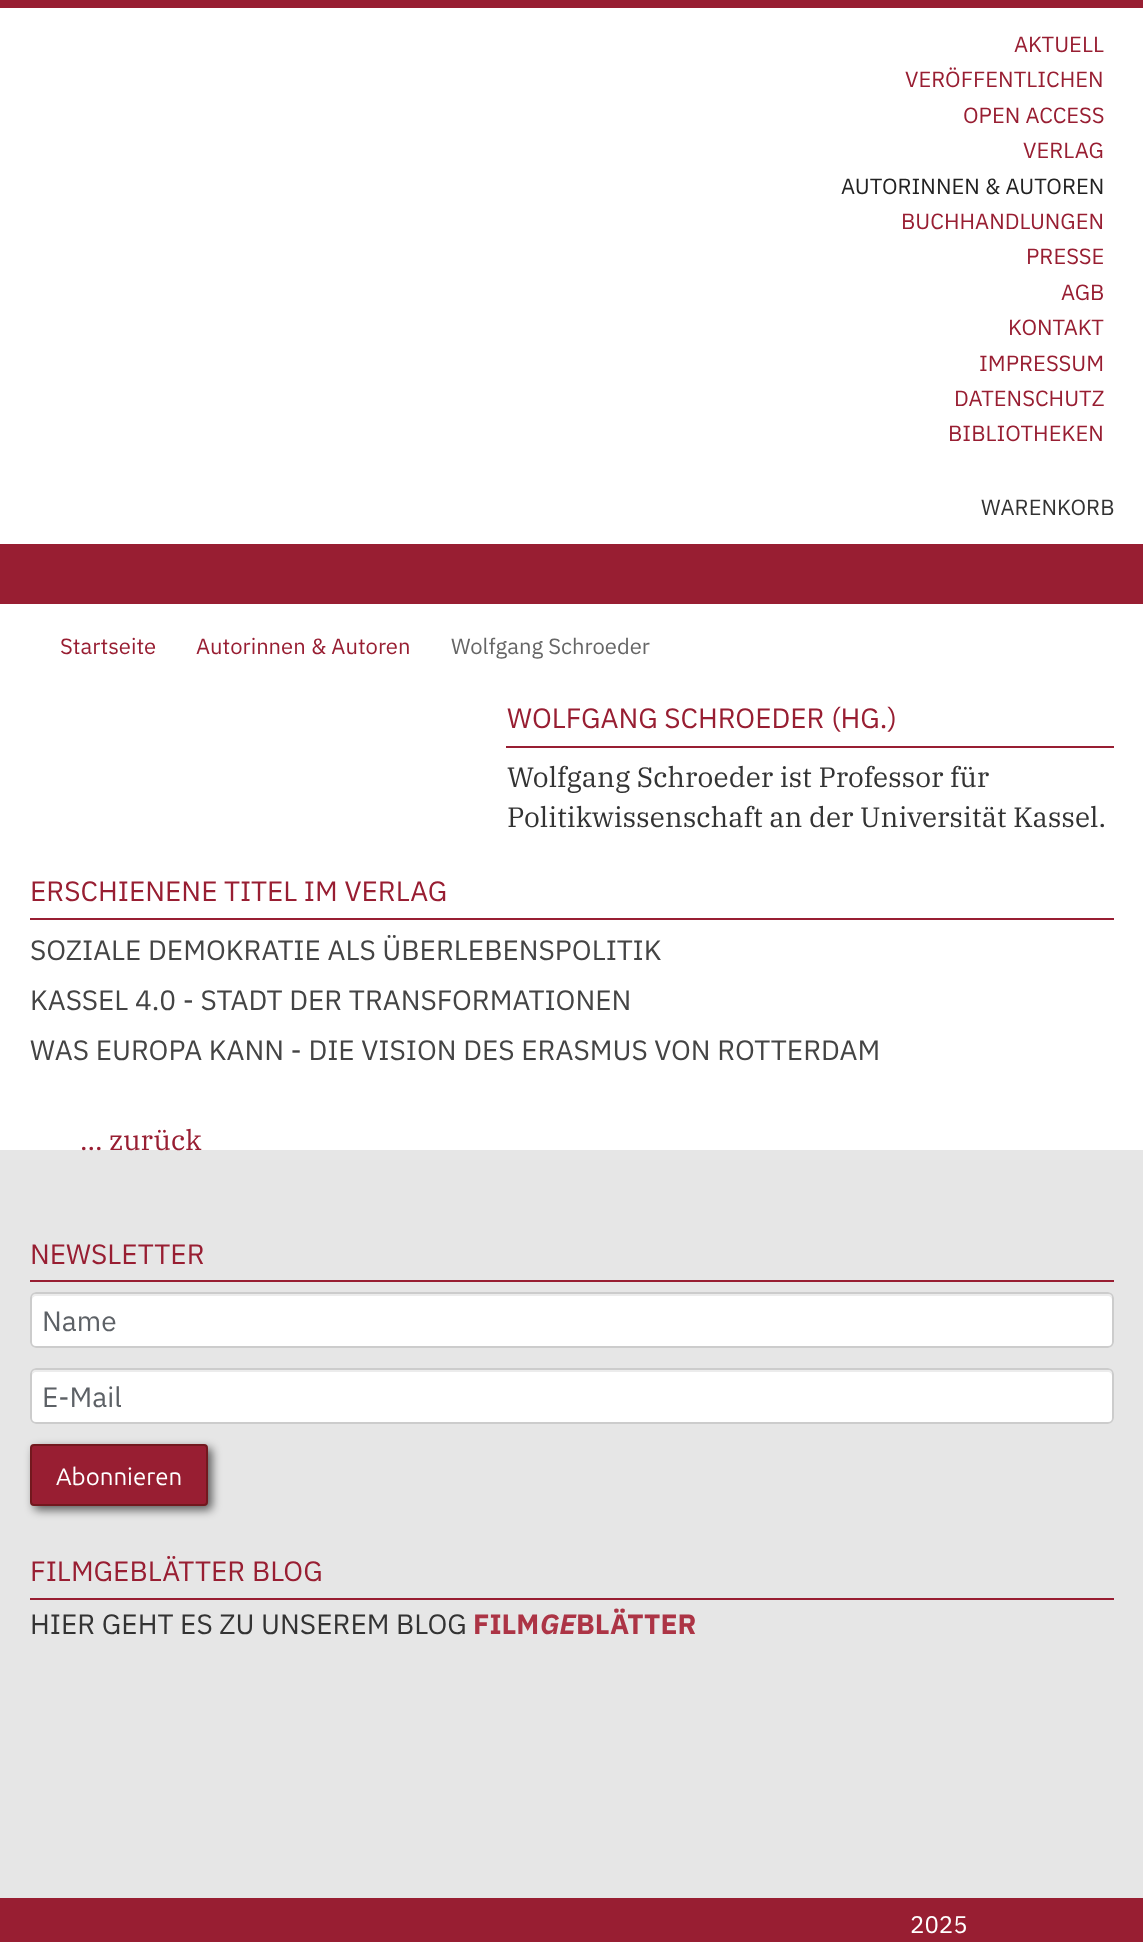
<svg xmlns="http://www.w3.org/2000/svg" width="1143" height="1942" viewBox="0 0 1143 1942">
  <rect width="100%" height="100%" fill="rgb(255,255,255)"/>
  <rect x="0" y="0" width="1143" height="8" fill="rgb(152,30,50)"/>
  <g font-family="IBM Plex Sans" font-size="22" fill="rgb(152,30,50)">
    <text x="1014" y="52">AKTUELL</text>
    <text x="905" y="87">VERÖFFENTLICHEN</text>
    <text x="963" y="123">OPEN ACCESS</text>
    <text x="1023" y="158">VERLAG</text>
  </g>
  <text x="841" y="194" font-family="IBM Plex Sans" font-size="22" fill="rgb(34,34,34)">AUTORINNEN &amp; AUTOREN</text>
  <g font-family="IBM Plex Sans" font-size="22" fill="rgb(152,30,50)">
    <text x="901" y="229">BUCHHANDLUNGEN</text>
    <text x="1026" y="264">PRESSE</text>
    <text x="1061" y="300">AGB</text>
    <text x="1008" y="335">KONTAKT</text>
    <text x="979" y="371">IMPRESSUM</text>
    <text x="954" y="406">DATENSCHUTZ</text>
    <text x="948" y="441">BIBLIOTHEKEN</text>
  </g>
  <text x="981" y="515" font-family="IBM Plex Sans" font-size="22" fill="rgb(51,51,51)">WARENKORB</text>
  <rect x="0" y="544" width="1143" height="60" fill="rgb(152,30,50)"/>
  <g font-family="IBM Plex Sans" font-size="22" fill="rgb(152,30,50)">
    <text x="60" y="654">Startseite</text>
    <text x="196" y="654">Autorinnen &amp; Autoren</text>
  </g>
  <text x="451" y="654" font-family="IBM Plex Sans" font-size="22" fill="rgb(102,102,102)">Wolfgang Schroeder</text>
  <rect x="506" y="746" width="608" height="2" fill="rgb(152,30,50)"/>
  <text x="507" y="728" font-family="IBM Plex Sans" font-size="28" fill="rgb(152,30,50)">WOLFGANG SCHROEDER (HG.)</text>
  <g font-family="IBM Plex Serif" font-size="28" fill="rgb(51,51,51)">
    <text>
      <tspan x="507" y="787">Wolfgang Schroeder ist Professor für</tspan>
      <tspan x="507" y="827">Politikwissenschaft an der Universität Kassel.</tspan>
    </text>
  </g>
  <rect x="30" y="918" width="1084" height="2" fill="rgb(152,30,50)"/>
  <text x="30" y="901" font-family="IBM Plex Sans" font-size="28" fill="rgb(152,30,50)">ERSCHIENENE TITEL IM VERLAG</text>
  <g font-family="IBM Plex Sans" font-size="28" fill="rgb(68,68,68)">
    <text>
      <tspan x="30" y="960">SOZIALE DEMOKRATIE ALS ÜBERLEBENSPOLITIK</tspan>
      <tspan x="30" y="1010">KASSEL 4.0 - STADT DER TRANSFORMATIONEN</tspan>
      <tspan x="30" y="1060">WAS EUROPA KANN - DIE VISION DES ERASMUS VON ROTTERDAM</tspan>
    </text>
  </g>
  <rect x="0" y="1150" width="1143" height="748" fill="rgb(230,230,230)"/>
  <text x="80" y="1150" font-family="IBM Plex Serif" font-size="28" fill="rgb(152,30,50)">… zurück</text>
  <rect x="30" y="1280" width="1084" height="2" fill="rgb(152,30,50)"/>
  <text x="30" y="1264" font-family="IBM Plex Sans" font-size="28" fill="rgb(152,30,50)">NEWSLETTER</text>
  <rect x="30" y="1292" width="1084" height="56" rx="6" fill="rgb(255,255,255)"/>
  <path d="M36 1296H1108C1110 1296 1112 1298 1112 1300V1298C1112 1296 1110 1294 1108 1294H36C34 1294 32 1296 32 1298V1300C32 1298 34 1296 36 1296Z" fill="rgb(236,236,236)"/>
  <rect x="31" y="1293" width="1082" height="54" rx="5" fill="none" stroke="rgb(204,204,204)" stroke-width="2"/>
  <text x="42" y="1331" font-family="IBM Plex Sans" font-size="28" fill="rgb(93,97,102)">Name</text>
  <rect x="30" y="1368" width="1084" height="56" rx="6" fill="rgb(255,255,255)"/>
  <path d="M36 1372H1108C1110 1372 1112 1374 1112 1376V1374C1112 1372 1110 1370 1108 1370H36C34 1370 32 1372 32 1374V1376C32 1374 34 1372 36 1372Z" fill="rgb(236,236,236)"/>
  <rect x="31" y="1369" width="1082" height="54" rx="5" fill="none" stroke="rgb(204,204,204)" stroke-width="2"/>
  <text x="42" y="1407" font-family="IBM Plex Sans" font-size="28" fill="rgb(93,97,102)">E-Mail</text>
  <rect x="34" y="1448" width="178" height="62" rx="4" fill="rgba(0,0,0,0.6)" filter="blur(5px)"/>
  <rect x="31" y="1445" width="176" height="60" rx="3" fill="rgb(152,30,50)" stroke="rgb(114,24,30)" stroke-width="2"/>
  <text x="56" y="1485" font-family="Ubuntu" font-size="24" fill="rgb(255,255,255)">Abonnieren</text>
  <rect x="30" y="1598" width="1084" height="2" fill="rgb(152,30,50)"/>
  <text x="30" y="1581" font-family="IBM Plex Sans" font-size="28" fill="rgb(152,30,50)">FILMGEBLÄTTER BLOG</text>
  <text x="30" y="1634" font-family="IBM Plex Sans" font-size="28" fill="rgb(51,51,51)">HIER GEHT ES ZU UNSEREM BLOG</text>
  <text x="473" y="1634" font-family="IBM Plex Sans" font-size="28" font-weight="bold" fill="rgb(172,52,69)">FILM</text>
  <text x="540" y="1634" font-family="IBM Plex Sans" font-size="28" font-weight="bold" font-style="italic" fill="rgb(172,52,69)">GE</text>
  <text x="576" y="1634" font-family="IBM Plex Sans" font-size="28" font-weight="bold" fill="rgb(172,52,69)">BLÄTTER</text>
  <rect x="0" y="1898" width="1143" height="44" fill="rgb(152,30,50)"/>
  <text x="910" y="1933" font-family="IBM Plex Sans" font-size="24" fill="rgb(255,255,255)">2025</text>
</svg>
